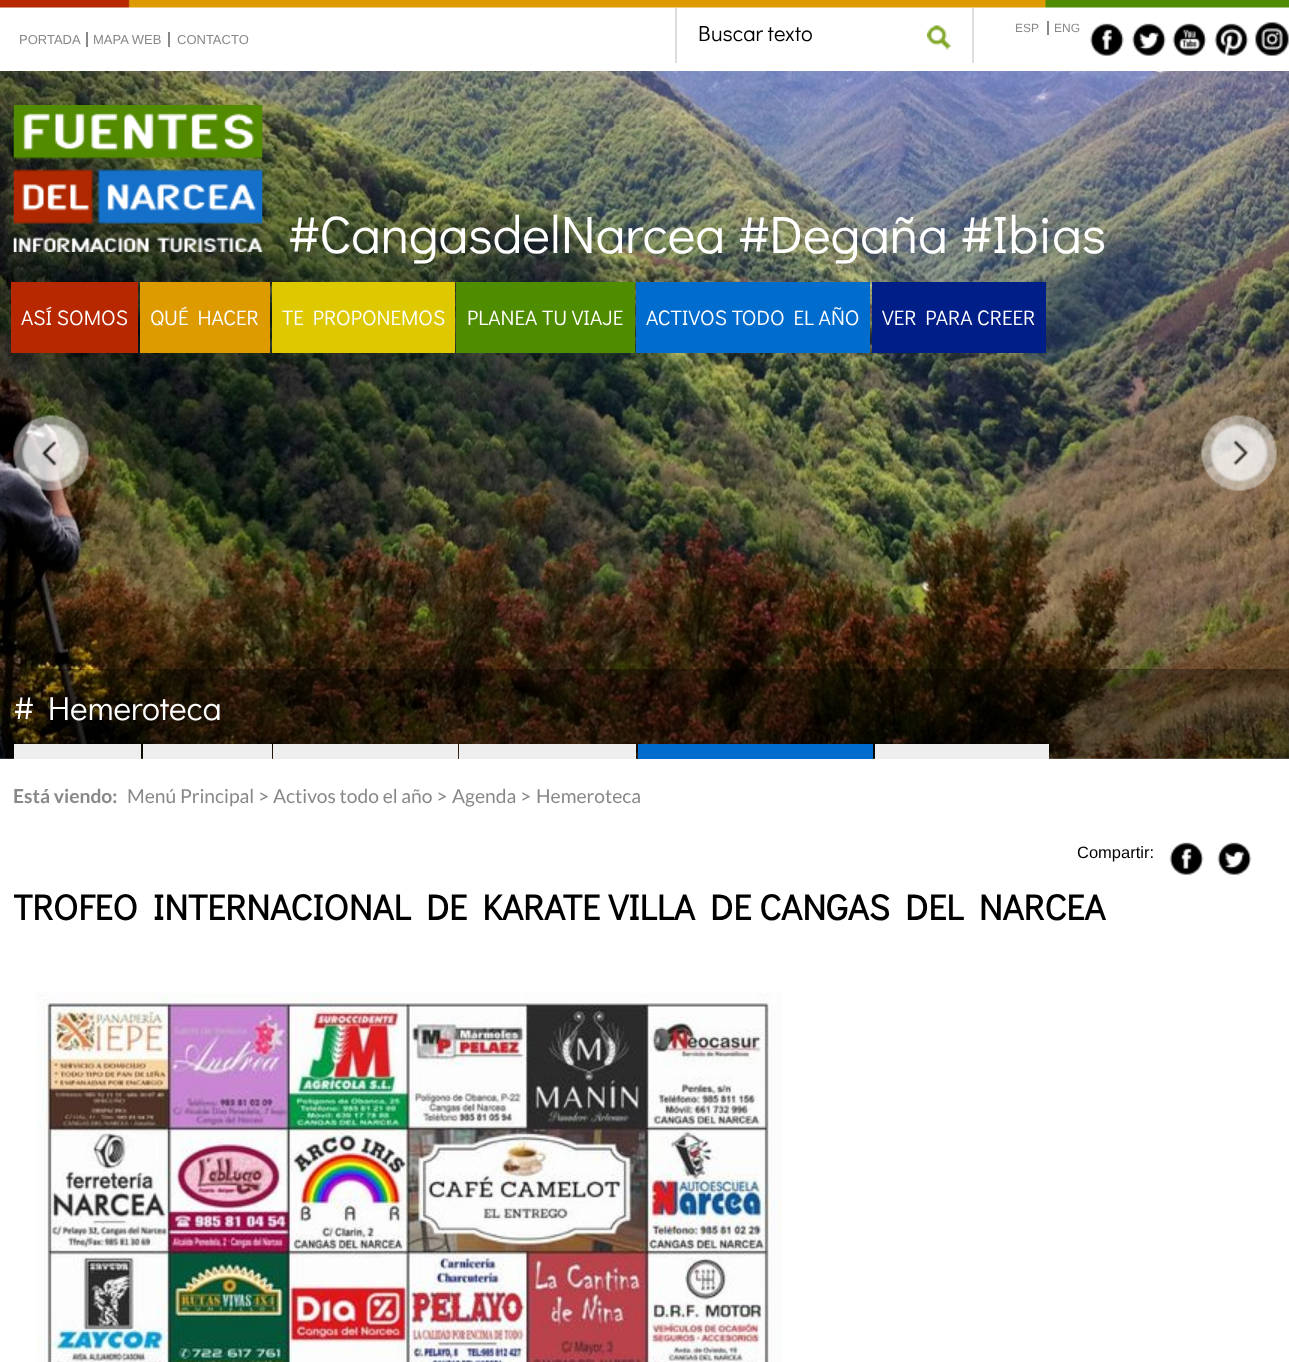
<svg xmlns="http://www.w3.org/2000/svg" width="1289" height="1362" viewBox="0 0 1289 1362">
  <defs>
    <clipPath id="clip1"><rect x="14" y="828" width="1263" height="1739"/></clipPath>
  </defs>
  <rect width="100%" height="100%" fill="rgb(255,255,255)"/>
  <image x="0" y="0" width="1289" height="8" href="pic1.png"/>
  <g font-family="Liberation Sans" font-size="13" fill="rgb(136,136,136)">
    <text x="19" y="44">PORTADA</text>
    <text x="93" y="44">MAPA WEB</text>
  </g>
  <rect x="86" y="32" width="2" height="15" fill="rgb(136,136,136)"/>
  <text x="177" y="44" font-family="Liberation Sans" font-size="13" fill="rgb(136,136,136)">CONTACTO</text>
  <rect x="168" y="32" width="2" height="15" fill="rgb(136,136,136)"/>
  <rect x="972" y="8" width="2" height="55" fill="rgb(221,221,221)"/>
  <rect x="675" y="8" width="2" height="55" fill="rgb(221,221,221)"/>
  <text x="698" y="41" font-family="Didact Gothic" font-size="22" fill="rgb(0,0,0)">Buscar texto</text>
  <image x="927" y="25" width="24" height="25" href="pic2.png"/>
  <g font-family="Liberation Sans" font-size="12" fill="rgb(136,136,136)">
    <text x="1015" y="32">ESP</text>
    <text x="1054" y="32">ENG</text>
  </g>
  <rect x="1047" y="21" width="2" height="14" fill="rgb(136,136,136)"/>
  <image x="1090" y="23" width="34" height="33" href="pic3.png"/>
  <image x="1132" y="23" width="34" height="33" href="pic4.png"/>
  <image x="1172" y="23" width="35" height="33" href="pic5.png"/>
  <image x="1214" y="23" width="35" height="33" href="pic6.png"/>
  <image x="1255" y="22" width="34" height="34" href="pic7.png"/>
  <image x="0" y="71" width="1289" height="688" href="pic9.png"/>
  <image x="13" y="105" width="250" height="147" href="pic8.png"/>
  <text x="287" y="253" font-family="Didact Gothic" font-size="52.75" fill="rgb(255,255,255)">#CangasdelNarcea #Degaña #Ibias</text>
  <rect x="11" y="282" width="127" height="71" fill="rgb(184,40,0)"/>
  <text x="21" y="325" font-family="Didact Gothic" font-size="21" fill="rgb(255,255,255)">ASÍ SOMOS</text>
  <rect x="140" y="282" width="130" height="71" fill="rgb(221,155,0)"/>
  <text x="150" y="325" font-family="Didact Gothic" font-size="21" fill="rgb(255,255,255)">QUÉ HACER</text>
  <rect x="272" y="282" width="183" height="71" fill="rgb(222,201,0)"/>
  <text x="282" y="325" font-family="Didact Gothic" font-size="21" fill="rgb(255,255,255)">TE PROPONEMOS</text>
  <rect x="456" y="282" width="179" height="71" fill="rgb(80,140,0)"/>
  <text x="467" y="325" font-family="Didact Gothic" font-size="21" fill="rgb(255,255,255)">PLANEA TU VIAJE</text>
  <rect x="636" y="282" width="234" height="71" fill="rgb(0,108,206)"/>
  <text x="646" y="325" font-family="Didact Gothic" font-size="21" fill="rgb(255,255,255)">ACTIVOS TODO EL AÑO</text>
  <rect x="872" y="282" width="174" height="71" fill="rgb(0,30,135)"/>
  <text x="882" y="325" font-family="Didact Gothic" font-size="21" fill="rgb(255,255,255)">VER PARA CREER</text>
  <image x="13" y="415" width="76" height="76" href="pic10.png"/>
  <image x="1201" y="415" width="76" height="76" href="pic11.png"/>
  <rect x="0" y="669" width="1289" height="90" fill="rgba(0,0,0,0.33)"/>
  <text x="13" y="720" font-family="Didact Gothic" font-size="33.5" fill="rgb(255,255,255)"># Hemeroteca</text>
  <rect x="14" y="744" width="127" height="15" fill="rgb(238,238,238)"/>
  <rect x="143" y="744" width="129" height="15" fill="rgb(238,238,238)"/>
  <rect x="273" y="744" width="185" height="15" fill="rgb(238,238,238)"/>
  <rect x="459" y="744" width="177" height="15" fill="rgb(238,238,238)"/>
  <rect x="638" y="744" width="235" height="15" fill="rgb(0,108,206)"/>
  <rect x="875" y="744" width="174" height="15" fill="rgb(238,238,238)"/>
  <text x="13" y="803" font-family="Lato" font-size="19.25" font-weight="bold" fill="rgb(136,136,136)">Está viendo:</text>
  <g font-family="Lato" font-size="19.25" fill="rgb(136,136,136)">
    <text x="127" y="803">Menú Principal &gt;</text>
    <text x="273" y="803">Activos todo el año &gt;</text>
    <text x="452" y="803">Agenda &gt;</text>
    <text x="536" y="803">Hemeroteca</text>
  </g>
  <text x="1077" y="858" font-family="Liberation Sans" font-size="16.5" fill="rgb(0,0,0)">Compartir:</text>
  <image x="1169" y="842" width="35" height="33" href="pic12.png"/>
  <image x="1217" y="842" width="35" height="33" href="pic13.png"/>
  <g clip-path="url(#clip1)">
    <text x="13" y="920" font-family="Didact Gothic" font-size="36" font-weight="bold" fill="rgb(0,0,0)">TROFEO INTERNACIONAL DE KARATE VILLA DE CANGAS DEL NARCEA</text>
  </g>
  <image x="36" y="992" width="746" height="370" href="pic14.png"/>
</svg>
